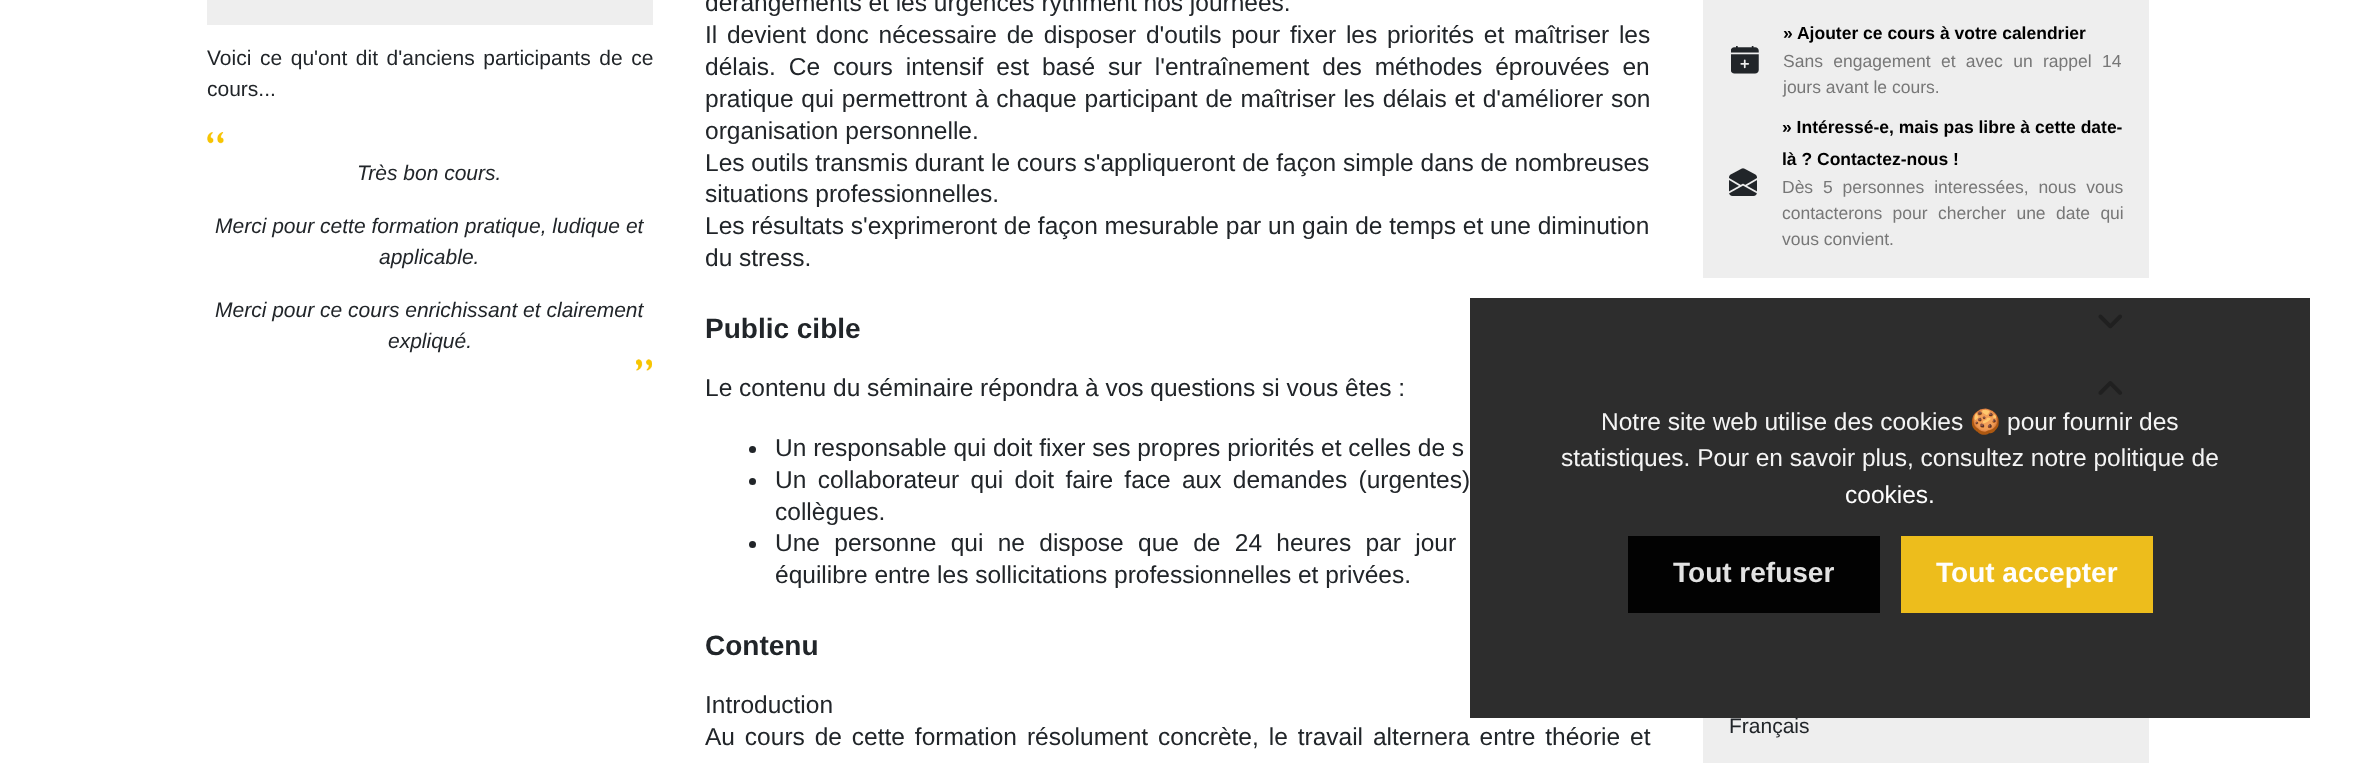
<svg xmlns="http://www.w3.org/2000/svg" width="2355" height="763" viewBox="0 0 2355 763">
  <rect width="100%" height="100%" fill="rgb(255,255,255)"/>
  <rect x="207" y="0" width="446" height="25" fill="rgb(238,238,238)"/>
  <g font-family="Liberation Sans" font-size="21" fill="rgb(33,37,41)">
    <text>
      <tspan x="207" y="65" word-spacing="2.75">Voici ce qu'ont dit d'anciens participants de ce</tspan>
      <tspan x="207" y="96">cours...</tspan>
    </text>
  </g>
  <image x="207" y="132" width="17" height="12" href="pic1.png"/>
  <g font-family="Liberation Sans" font-size="21" font-style="italic" fill="rgb(33,37,41)">
    <text x="357" y="180">Très bon cours.</text>
    <text x="215" y="233">Merci pour cette formation pratique, ludique et</text>
    <text x="379" y="264">applicable.</text>
    <text x="215" y="317">Merci pour ce cours enrichissant et clairement</text>
    <text x="388" y="348">expliqué.</text>
  </g>
  <image x="636" y="359" width="16" height="12" href="pic2.png"/>
  <g font-family="Liberation Sans" font-size="24.5" fill="rgb(33,37,41)">
    <text>
      <tspan x="705" y="11">dérangements et les urgences rythment nos journées.</tspan>
      <tspan x="705" y="43" word-spacing="2.9">Il devient donc nécessaire de disposer d'outils pour fixer les priorités et maîtriser les</tspan>
      <tspan x="705" y="75" word-spacing="6.1">délais. Ce cours intensif est basé sur l'entraînement des méthodes éprouvées en</tspan>
      <tspan x="705" y="107" word-spacing="1">pratique qui permettront à chaque participant de maîtriser les délais et d'améliorer son</tspan>
      <tspan x="705" y="139">organisation personnelle.</tspan>
      <tspan x="705" y="171">Les outils transmis durant le cours s'appliqueront de façon simple dans de nombreuses</tspan>
      <tspan x="705" y="202">situations professionnelles.</tspan>
      <tspan x="705" y="234">Les résultats s'exprimeront de façon mesurable par un gain de temps et une diminution</tspan>
      <tspan x="705" y="266">du stress.</tspan>
    </text>
  </g>
  <text x="705" y="338" font-family="Liberation Sans" font-size="28" font-weight="bold" fill="rgb(33,37,41)">Public cible</text>
  <text x="705" y="396" font-family="Liberation Sans" font-size="24.5" fill="rgb(33,37,41)">Le contenu du séminaire répondra à vos questions si vous êtes :</text>
  <circle cx="752.5" cy="449.5" r="3.5" fill="rgb(33,37,41)"/>
  <text x="775" y="456" font-family="Liberation Sans" font-size="24.5" fill="rgb(33,37,41)">Un responsable qui doit fixer ses propres priorités et celles de s</text>
  <circle cx="752.5" cy="481.5" r="3.5" fill="rgb(33,37,41)"/>
  <g font-family="Liberation Sans" font-size="24.5" fill="rgb(33,37,41)">
    <text>
      <tspan x="775" y="488" word-spacing="4.5">Un collaborateur qui doit faire face aux demandes (urgentes)</tspan>
      <tspan x="775" y="520">collègues.</tspan>
    </text>
  </g>
  <circle cx="752.5" cy="544.5" r="3.5" fill="rgb(33,37,41)"/>
  <g font-family="Liberation Sans" font-size="24.5" fill="rgb(33,37,41)">
    <text>
      <tspan x="775" y="551" word-spacing="7.5">Une personne qui ne dispose que de 24 heures par jour</tspan>
      <tspan x="775" y="583">équilibre entre les sollicitations professionnelles et privées.</tspan>
    </text>
  </g>
  <text x="705" y="655" font-family="Liberation Sans" font-size="28" font-weight="bold" fill="rgb(33,37,41)">Contenu</text>
  <g font-family="Liberation Sans" font-size="24.5" fill="rgb(33,37,41)">
    <text>
      <tspan x="705" y="713">Introduction</tspan>
      <tspan x="705" y="745" word-spacing="3.1">Au cours de cette formation résolument concrète, le travail alternera entre théorie et</tspan>
    </text>
  </g>
  <rect x="1703" y="0" width="446" height="278" fill="rgb(238,238,238)"/>
  <image x="1731" y="46" width="28" height="28" href="pic3.png"/>
  <text x="1783" y="39" font-family="Liberation Sans" font-size="17.5" font-weight="bold" fill="rgb(0,0,0)">» Ajouter ce cours à votre calendrier</text>
  <g font-family="Liberation Sans" font-size="17.5" fill="rgb(119,119,119)">
    <text>
      <tspan x="1783" y="67" word-spacing="5.5">Sans engagement et avec un rappel 14</tspan>
      <tspan x="1783" y="93">jours avant le cours.</tspan>
    </text>
  </g>
  <image x="1729" y="168" width="28" height="28" href="pic4.png"/>
  <g font-family="Liberation Sans" font-size="17.5" font-weight="bold" fill="rgb(0,0,0)">
    <text>
      <tspan x="1782" y="133">» Intéressé-e, mais pas libre à cette date-</tspan>
      <tspan x="1782" y="165">là ? Contactez-nous !</tspan>
    </text>
  </g>
  <g font-family="Liberation Sans" font-size="17.5" fill="rgb(119,119,119)">
    <text>
      <tspan x="1782" y="193" word-spacing="5">Dès 5 personnes interessées, nous vous</tspan>
      <tspan x="1782" y="219" word-spacing="5.5">contacterons pour chercher une date qui</tspan>
      <tspan x="1782" y="245">vous convient.</tspan>
    </text>
  </g>
  <rect x="1703" y="299" width="446" height="49" fill="rgb(238,238,238)"/>
  <image x="2098" y="314" width="25" height="15" href="pic5.png"/>
  <rect x="1703" y="366" width="446" height="49" fill="rgb(238,238,238)"/>
  <image x="2098" y="381" width="25" height="14" href="pic6.png"/>
  <rect x="1703" y="432" width="446" height="331" fill="rgb(238,238,238)"/>
  <text x="1729" y="733" font-family="Liberation Sans" font-size="21" fill="rgb(33,37,41)">Français</text>
  <rect x="1470" y="298" width="840" height="420" fill="rgba(34,34,34,0.95)"/>
  <text x="1601" y="430" font-family="Liberation Sans" font-size="24.5" fill="rgb(244,244,244)">Notre site web utilise des cookies</text>
  <text x="1970" y="430" font-family="Noto Color Emoji" font-size="24.5" fill="rgb(244,244,244)">🍪</text>
  <g font-family="Liberation Sans" font-size="24.5" fill="rgb(244,244,244)">
    <text x="2007" y="430">pour fournir des</text>
    <text x="1561" y="466">statistiques. Pour en savoir plus, consultez notre politique de</text>
  </g>
  <text x="1845" y="503" font-family="Liberation Sans" font-size="24.5" fill="rgb(254,254,254)">cookies.</text>
  <rect x="1628" y="536" width="252" height="77" fill="rgba(0,0,0,0.95)"/>
  <text x="1673" y="582" font-family="Liberation Sans" font-size="28" font-weight="bold" fill="rgb(226,226,226)">Tout refuser</text>
  <rect x="1901" y="536" width="252" height="77" fill="rgba(248,197,27,0.95)"/>
  <text x="1936" y="582" font-family="Liberation Sans" font-size="28" font-weight="bold" fill="rgb(254,254,254)">Tout accepter</text>
</svg>
